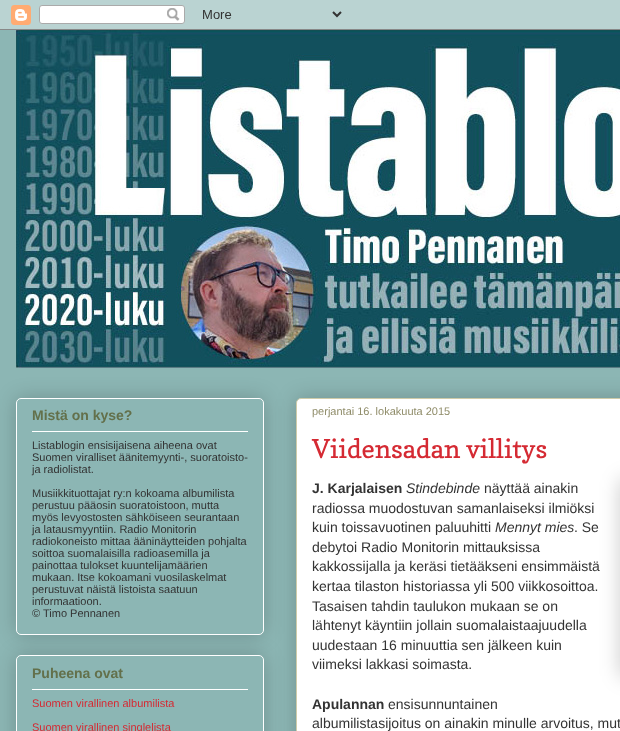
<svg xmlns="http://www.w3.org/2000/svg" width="620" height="731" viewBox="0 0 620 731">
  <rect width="100%" height="100%" fill="rgb(140,182,180)"/>
  <image x="0" y="0" width="620" height="30" href="pic1.png"/>
  <image x="16" y="30" width="604" height="338" href="pic2.png"/>
  <rect x="16" y="398" width="248" height="237" rx="5" fill="rgba(0,0,0,0.2)" filter="blur(10px)"/>
  <rect x="16.5" y="398.5" width="247" height="236" rx="4.5" fill="rgb(140,182,180)" stroke="rgb(255,255,255)"/>
  <text x="32" y="420" font-family="Liberation Sans" font-size="14" font-weight="bold" fill="rgb(99,112,75)">Mistä on kyse?</text>
  <rect x="32" y="431" width="216" height="1" fill="rgb(255,255,255)"/>
  <g font-family="Liberation Sans" font-size="11" fill="rgb(51,51,51)">
    <text>
      <tspan x="32" y="449">Listablogin ensisijaisena aiheena ovat</tspan>
      <tspan x="32" y="461">Suomen viralliset äänitemyynti-, suoratoisto-</tspan>
      <tspan x="32" y="473">ja radiolistat.</tspan>
    </text>
    <text>
      <tspan x="32" y="497">Musiikkituottajat ry:n kokoama albumilista</tspan>
      <tspan x="32" y="509">perustuu pääosin suoratoistoon, mutta</tspan>
      <tspan x="32" y="521">myös levyostosten sähköiseen seurantaan</tspan>
      <tspan x="32" y="533">ja latausmyyntiin. Radio Monitorin</tspan>
      <tspan x="32" y="545">radiokoneisto mittaa ääninäytteiden pohjalta</tspan>
      <tspan x="32" y="557">soittoa suomalaisilla radioasemilla ja</tspan>
      <tspan x="32" y="569">painottaa tulokset kuuntelijamäärien</tspan>
      <tspan x="32" y="581">mukaan. Itse kokoamani vuosilaskelmat</tspan>
      <tspan x="32" y="593">perustuvat näistä listoista saatuun</tspan>
      <tspan x="32" y="605">informaatioon.</tspan>
      <tspan x="32" y="617">© Timo Pennanen</tspan>
    </text>
  </g>
  <rect x="16" y="655" width="248" height="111" rx="5" fill="rgba(0,0,0,0.2)" filter="blur(10px)"/>
  <rect x="16.5" y="655.5" width="247" height="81" rx="4.5" fill="rgb(140,182,180)" stroke="rgb(255,255,255)"/>
  <text x="32" y="678" font-family="Liberation Sans" font-size="14" font-weight="bold" fill="rgb(99,112,75)">Puheena ovat</text>
  <rect x="32" y="689" width="216" height="1" fill="rgb(255,255,255)"/>
  <g font-family="Liberation Sans" font-size="11" fill="rgb(213,42,51)">
    <text x="32" y="707">Suomen virallinen albumilista</text>
    <text x="32" y="731">Suomen virallinen singlelista</text>
  </g>
  <rect x="296" y="398" width="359" height="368" rx="5" fill="rgba(0,0,0,0.2)" filter="blur(10px)"/>
  <rect x="296.5" y="398.5" width="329" height="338" rx="4.5" fill="rgb(255,255,255)" stroke="rgb(206,203,169)"/>
  <text x="312" y="415" font-family="Liberation Sans" font-size="11" fill="rgb(144,141,106)">perjantai 16. lokakuuta 2015</text>
  <text x="312" y="458" font-family="Copse" font-size="26" fill="rgb(213,42,51)">Viidensadan villitys</text>
  <text x="312" y="493" font-family="Liberation Sans" font-size="14" font-weight="bold" fill="rgb(51,51,51)">J. Karjalaisen</text>
  <text x="406" y="493" font-family="Liberation Sans" font-size="14" font-style="italic" fill="rgb(51,51,51)">Stindebinde</text>
  <text x="484" y="493" font-family="Liberation Sans" font-size="14" fill="rgb(51,51,51)">näyttää ainakin</text>
  <rect x="620" y="479" width="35" height="198" rx="5" fill="rgba(0,0,0,0.2)" filter="blur(10px)"/>
  <g font-family="Liberation Sans" font-size="14" fill="rgb(51,51,51)">
    <text>
      <tspan x="312" y="513">radiossa muodostuvan samanlaiseksi ilmiöksi</tspan>
      <tspan x="312" y="532">kuin toissavuotinen paluuhitti</tspan>
    </text>
  </g>
  <text x="495" y="532" font-family="Liberation Sans" font-size="14" font-style="italic" fill="rgb(51,51,51)">Mennyt mies</text>
  <g font-family="Liberation Sans" font-size="14" fill="rgb(51,51,51)">
    <text x="574" y="532">. Se</text>
    <text>
      <tspan x="312" y="552">debytoi Radio Monitorin mittauksissa</tspan>
      <tspan x="312" y="571">kakkossijalla ja keräsi tietääkseni ensimmäistä</tspan>
      <tspan x="312" y="591">kertaa tilaston historiassa yli 500 viikkosoittoa.</tspan>
      <tspan x="312" y="611">Tasaisen tahdin taulukon mukaan se on</tspan>
      <tspan x="312" y="630">lähtenyt käyntiin jollain suomalaistaajuudella</tspan>
      <tspan x="312" y="650">uudestaan 16 minuuttia sen jälkeen kuin</tspan>
      <tspan x="312" y="669">viimeksi lakkasi soimasta.</tspan>
    </text>
  </g>
  <text x="312" y="709" font-family="Liberation Sans" font-size="14" font-weight="bold" fill="rgb(51,51,51)">Apulannan</text>
  <g font-family="Liberation Sans" font-size="14" fill="rgb(51,51,51)">
    <text x="388" y="709">ensisunnuntainen</text>
    <text x="312" y="728">albumilistasijoitus on ainakin minulle arvoitus, mut</text>
  </g>
</svg>
